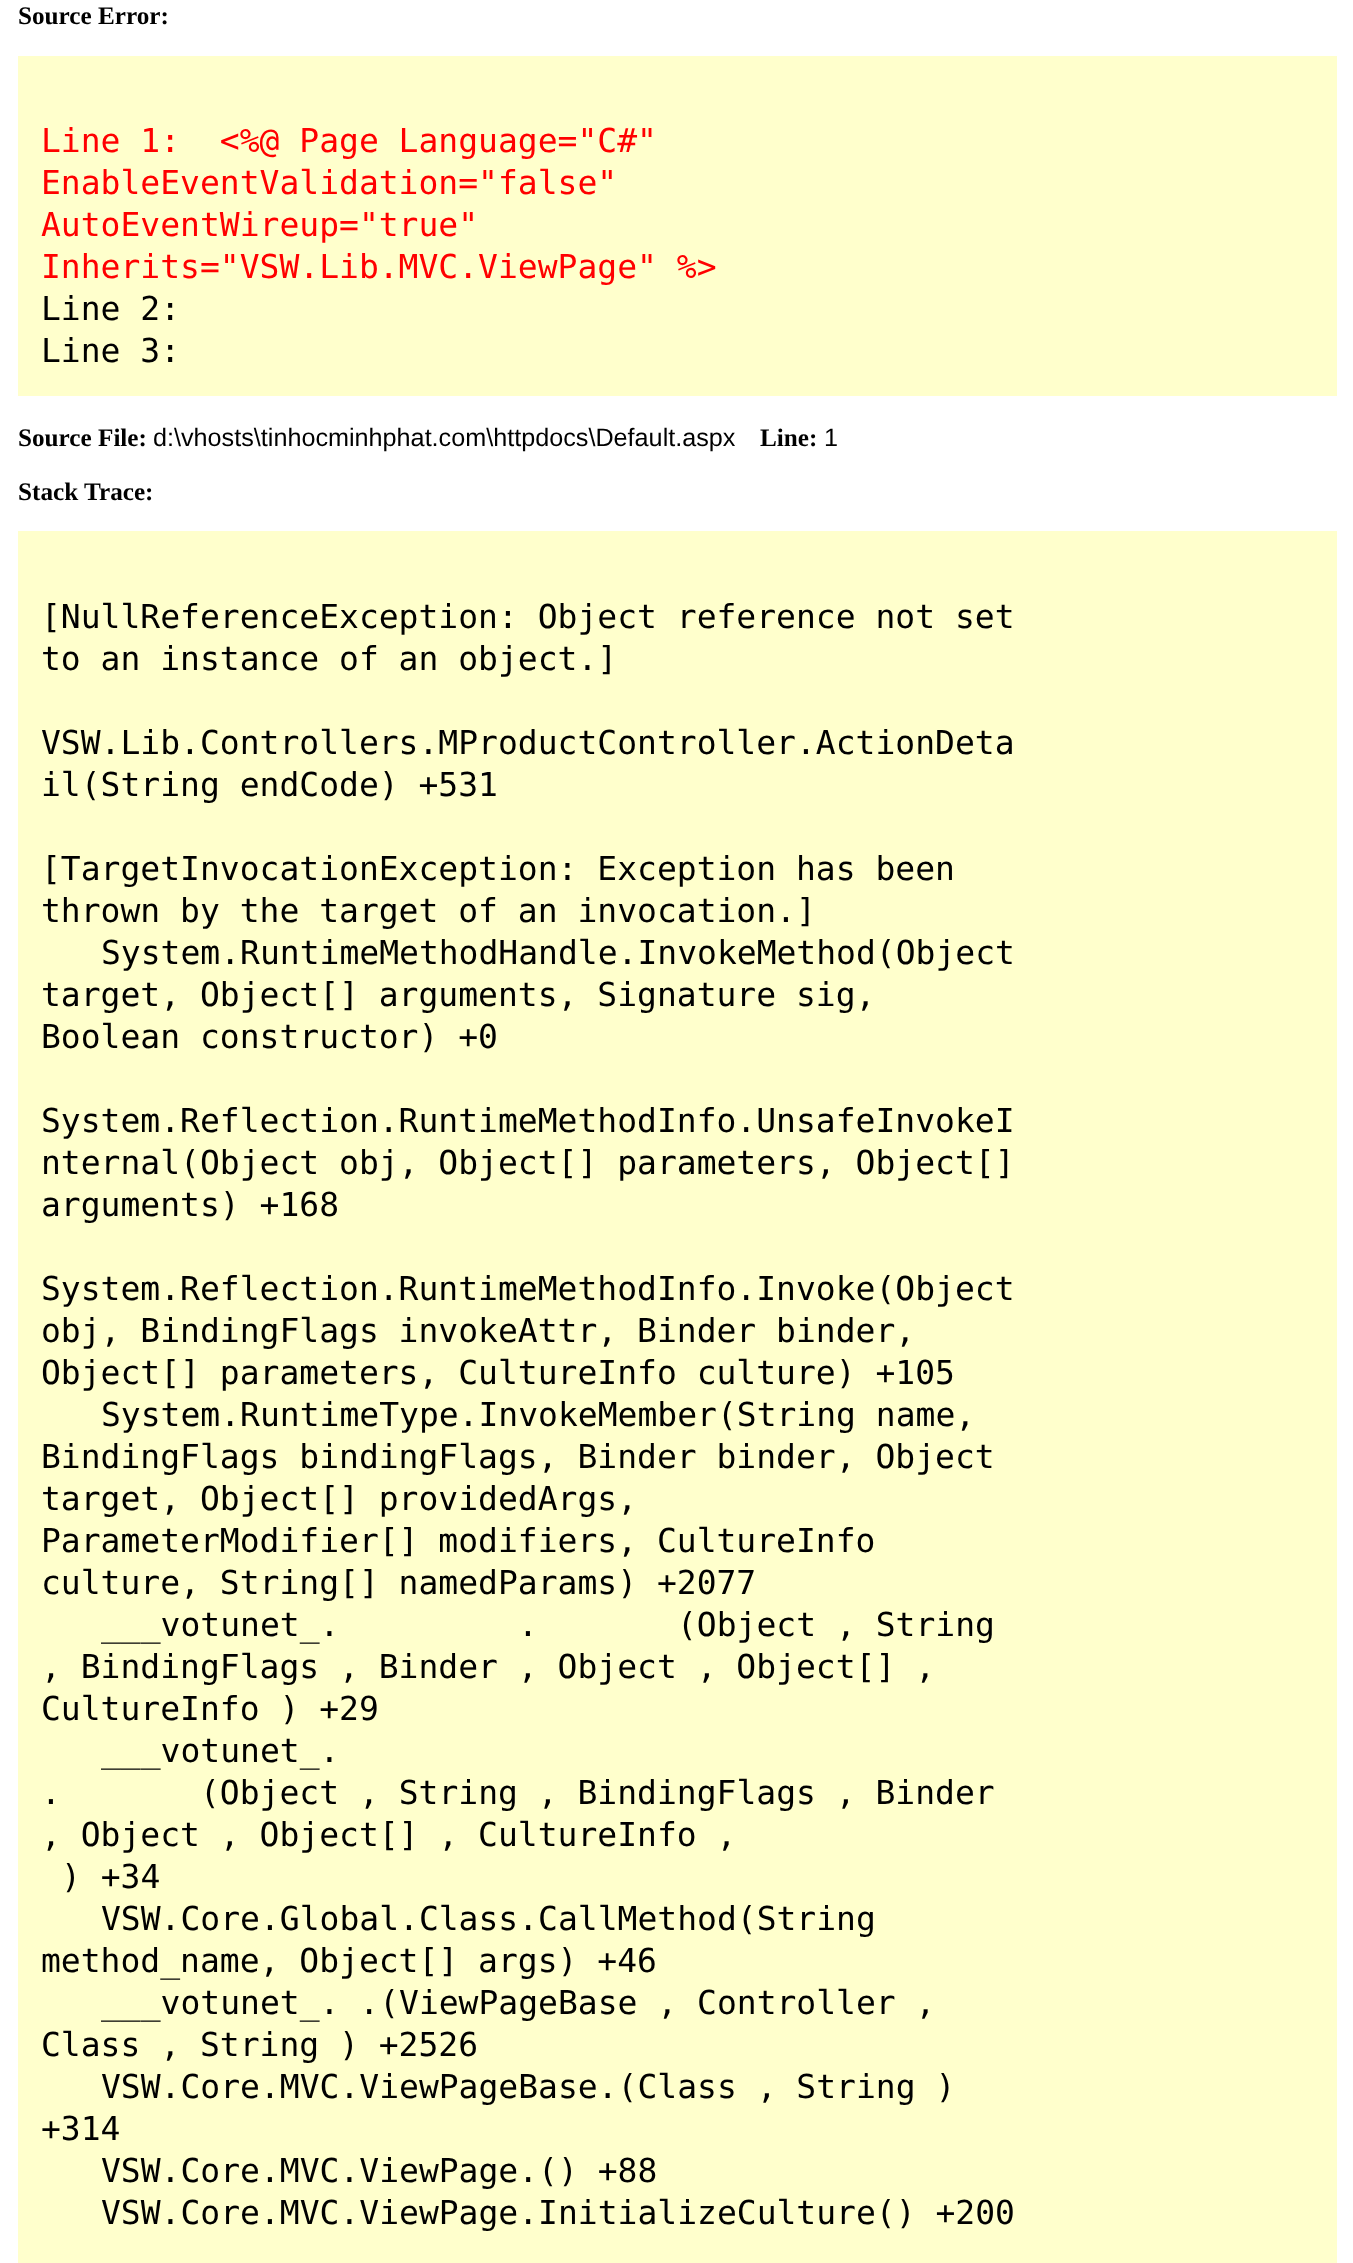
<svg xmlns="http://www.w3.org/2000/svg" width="1353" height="2263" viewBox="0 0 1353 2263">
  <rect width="100%" height="100%" fill="rgb(255,255,255)"/>
  <text x="18" y="24" font-family="Liberation Serif" font-size="25.2" font-weight="bold" fill="rgb(0,0,0)">Source Error:</text>
  <rect x="18" y="56" width="1319" height="340" fill="rgb(255,255,204)"/>
  <g font-family="DejaVu Sans Mono" font-size="33" fill="rgb(255,0,0)">
    <text xml:space="preserve"><tspan x="41" y="152">Line 1:  &lt;%@ Page Language="C#"</tspan><tspan x="41" y="194">EnableEventValidation="false"</tspan><tspan x="41" y="236">AutoEventWireup="true"</tspan><tspan x="41" y="278">Inherits="VSW.Lib.MVC.ViewPage" %&gt;</tspan></text>
  </g>
  <g font-family="DejaVu Sans Mono" font-size="33" fill="rgb(0,0,0)">
    <text>
      <tspan x="41" y="320">Line 2:</tspan>
      <tspan x="41" y="362">Line 3:</tspan>
    </text>
  </g>
  <text x="18" y="446" font-family="Liberation Serif" font-size="25.2" font-weight="bold" fill="rgb(0,0,0)">Source File:</text>
  <text x="153" y="446" font-family="Liberation Sans" font-size="25.2" fill="rgb(0,0,0)">d:\vhosts\tinhocminhphat.com\httpdocs\Default.aspx</text>
  <text x="760" y="446" font-family="Liberation Serif" font-size="25.2" font-weight="bold" fill="rgb(0,0,0)">Line:</text>
  <text x="824" y="446" font-family="Liberation Sans" font-size="25.2" fill="rgb(0,0,0)">1</text>
  <text x="18" y="500" font-family="Liberation Serif" font-size="25.2" font-weight="bold" fill="rgb(0,0,0)">Stack Trace:</text>
  <rect x="18" y="531" width="1319" height="1732" fill="rgb(255,255,204)"/>
  <g font-family="DejaVu Sans Mono" font-size="33" fill="rgb(0,0,0)">
    <text>
      <tspan x="41" y="628">[NullReferenceException: Object reference not set</tspan>
      <tspan x="41" y="670">to an instance of an object.]</tspan>
    </text>
    <text>
      <tspan x="41" y="754">VSW.Lib.Controllers.MProductController.ActionDeta</tspan>
      <tspan x="41" y="796">il(String endCode) +531</tspan>
    </text>
    <text>
      <tspan x="41" y="880">[TargetInvocationException: Exception has been</tspan>
      <tspan x="41" y="922">thrown by the target of an invocation.]</tspan>
    </text>
    <text x="101" y="964">System.RuntimeMethodHandle.InvokeMethod(Object</text>
    <text>
      <tspan x="41" y="1006">target, Object[] arguments, Signature sig,</tspan>
      <tspan x="41" y="1048">Boolean constructor) +0</tspan>
    </text>
    <text>
      <tspan x="41" y="1132">System.Reflection.RuntimeMethodInfo.UnsafeInvokeI</tspan>
      <tspan x="41" y="1174">nternal(Object obj, Object[] parameters, Object[]</tspan>
      <tspan x="41" y="1216">arguments) +168</tspan>
    </text>
    <text>
      <tspan x="41" y="1300">System.Reflection.RuntimeMethodInfo.Invoke(Object</tspan>
      <tspan x="41" y="1342">obj, BindingFlags invokeAttr, Binder binder,</tspan>
      <tspan x="41" y="1384">Object[] parameters, CultureInfo culture) +105</tspan>
    </text>
    <text x="101" y="1426">System.RuntimeType.InvokeMember(String name,</text>
    <text>
      <tspan x="41" y="1468">BindingFlags bindingFlags, Binder binder, Object</tspan>
      <tspan x="41" y="1510">target, Object[] providedArgs,</tspan>
      <tspan x="41" y="1552">ParameterModifier[] modifiers, CultureInfo</tspan>
      <tspan x="41" y="1594">culture, String[] namedParams) +2077</tspan>
    </text>
    <text x="101" y="1636">___votunet_.</text>
    <text x="518" y="1636">.</text>
    <text x="677" y="1636">(Object , String</text>
    <text>
      <tspan x="41" y="1678">, BindingFlags , Binder , Object , Object[] ,</tspan>
      <tspan x="41" y="1720">CultureInfo ) +29</tspan>
    </text>
    <text x="101" y="1762">___votunet_.</text>
    <text x="41" y="1804">.</text>
    <text x="200" y="1804">(Object , String , BindingFlags , Binder</text>
    <text x="41" y="1846">, Object , Object[] , CultureInfo ,</text>
    <text x="61" y="1888">) +34</text>
    <text x="101" y="1930">VSW.Core.Global.Class.CallMethod(String</text>
    <text x="41" y="1972">method_name, Object[] args) +46</text>
    <text x="101" y="2014">___votunet_. .(ViewPageBase , Controller ,</text>
    <text x="41" y="2056">Class , String ) +2526</text>
    <text x="101" y="2098">VSW.Core.MVC.ViewPageBase.(Class , String )</text>
    <text x="41" y="2140">+314</text>
    <text>
      <tspan x="101" y="2182">VSW.Core.MVC.ViewPage.() +88</tspan>
      <tspan x="101" y="2224">VSW.Core.MVC.ViewPage.InitializeCulture() +200</tspan>
    </text>
  </g>
</svg>
